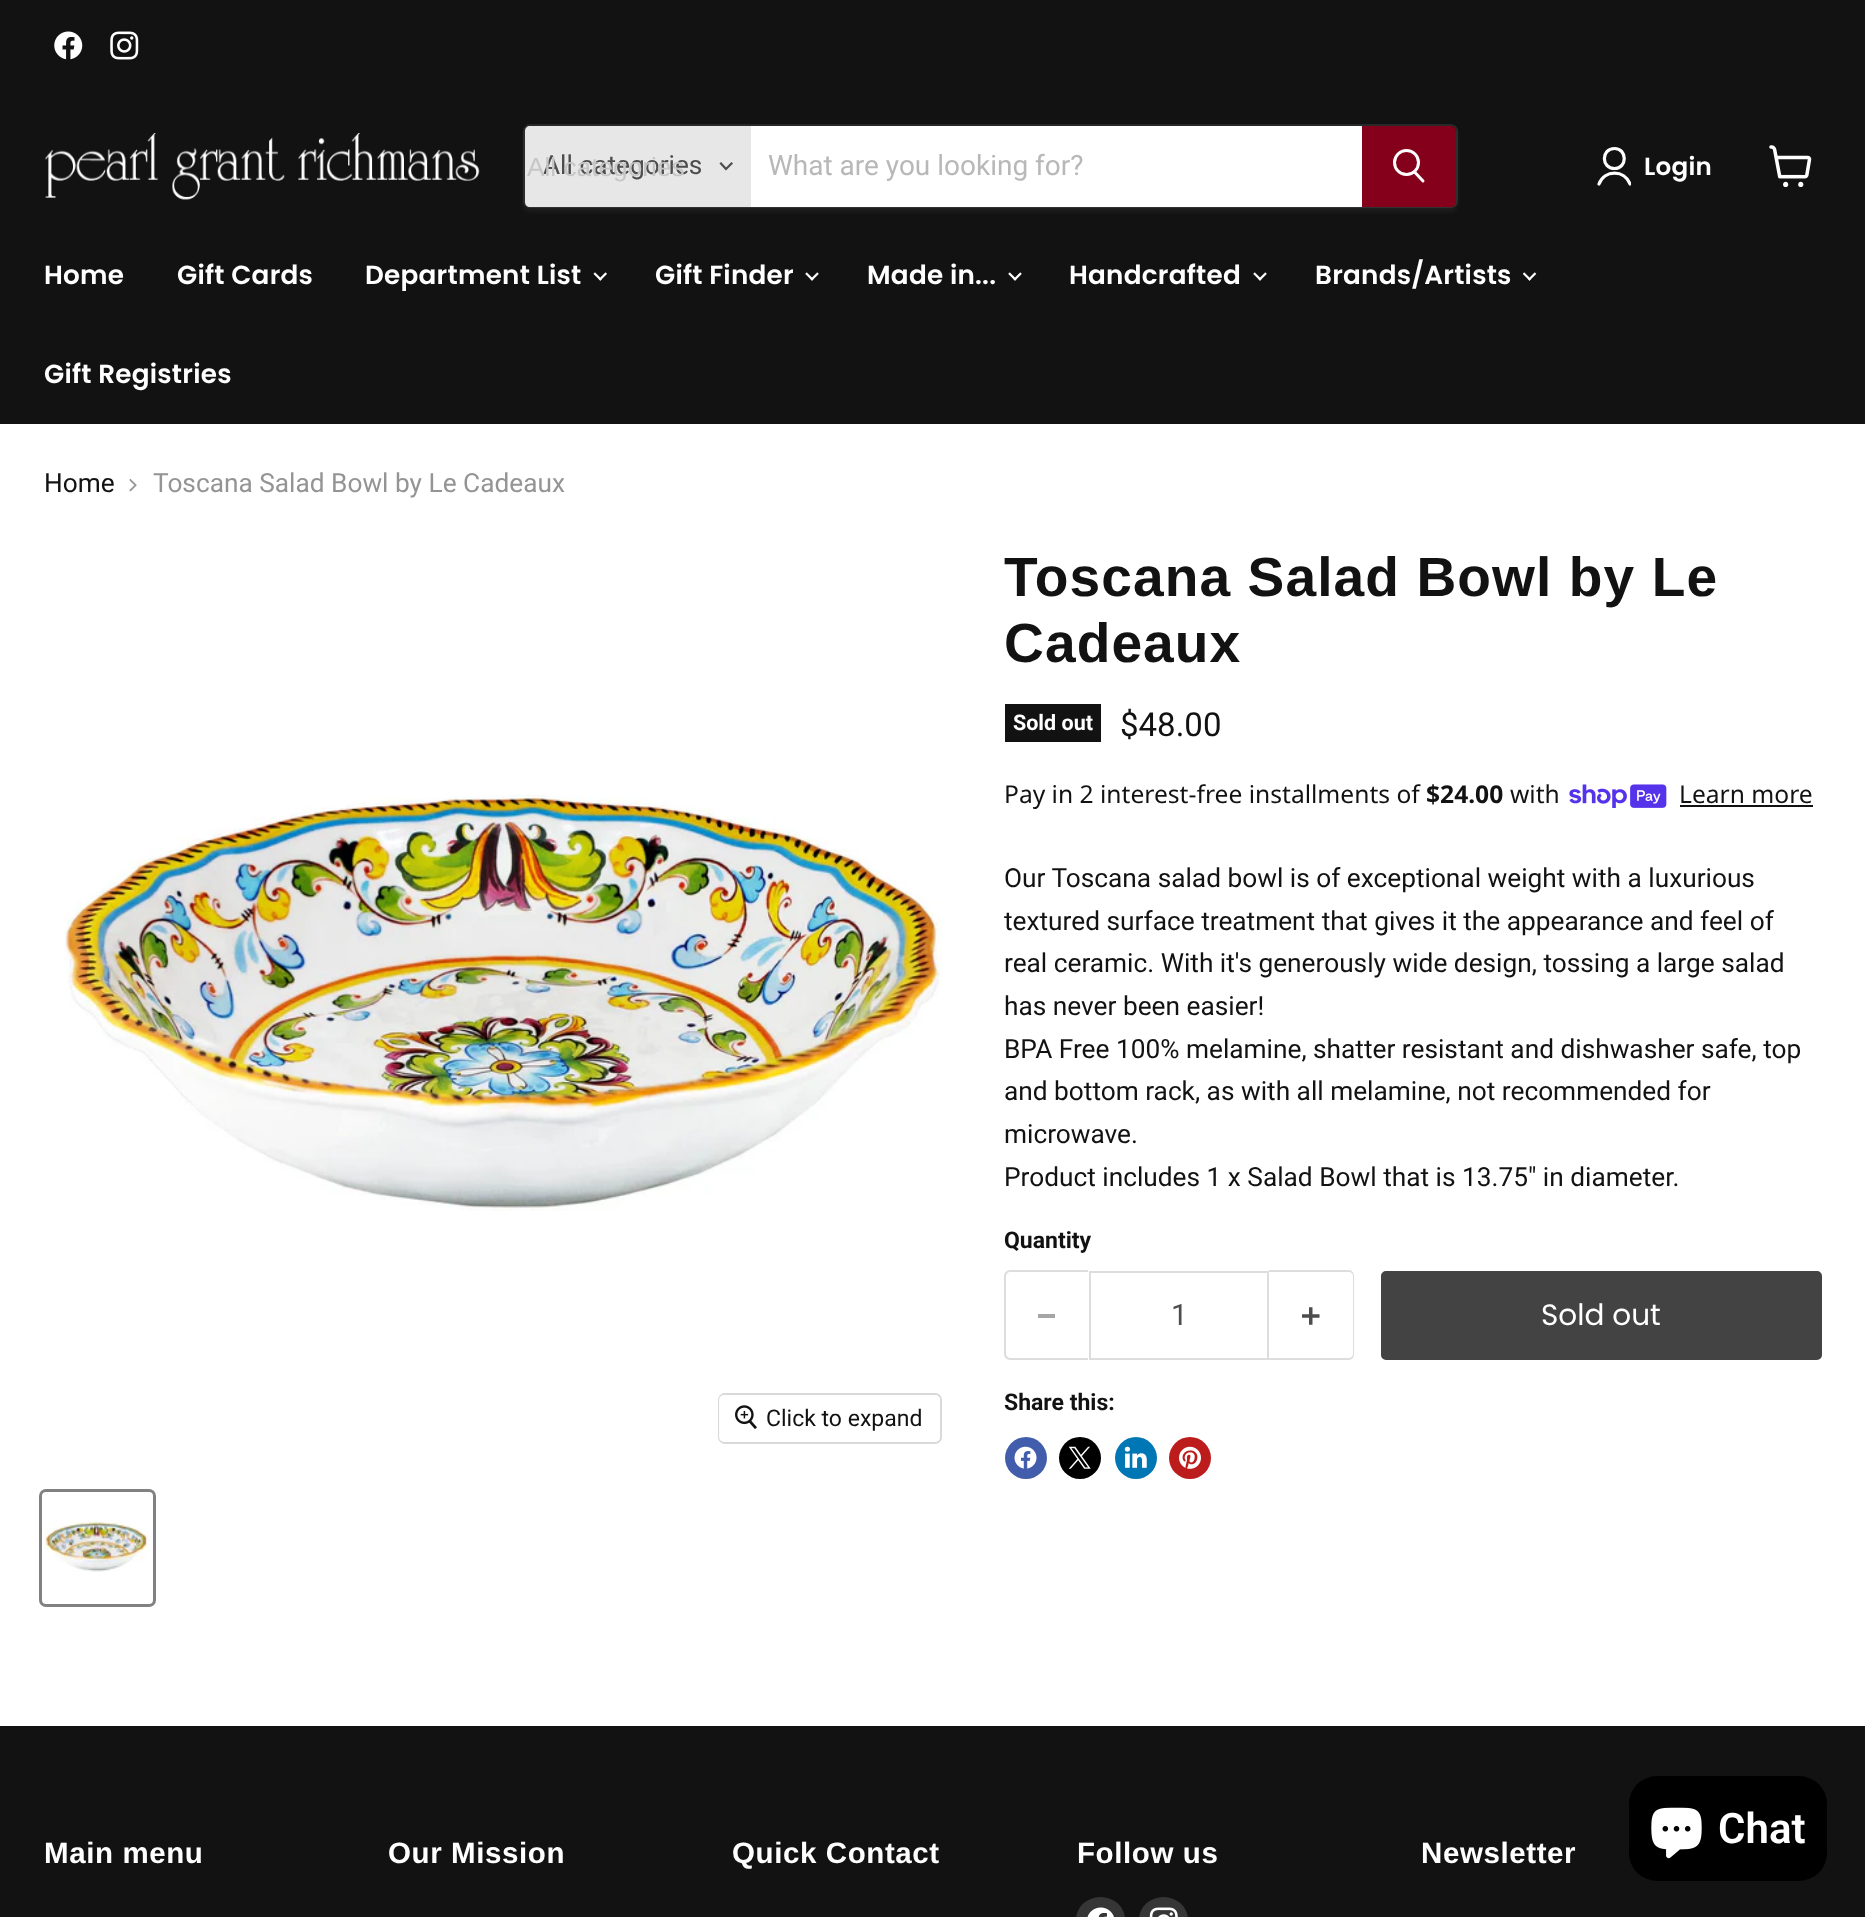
<svg xmlns="http://www.w3.org/2000/svg" width="1865" height="1917" viewBox="0 0 1865 1917">
  <defs>
    <clipPath id="clip1"><rect x="1596" y="145" width="35" height="42"/></clipPath>
  </defs>
  <rect width="100%" height="100%" fill="rgb(255,255,255)"/>
  <rect x="0" y="0" width="1865" height="424" fill="rgb(18,18,18)"/>
  <image x="54" y="31" width="29" height="29" href="pic1.png"/>
  <image x="110" y="31" width="29" height="29" href="pic2.png"/>
  <image x="44" y="133" width="436" height="67" href="pic3.png"/>
  <rect x="523" y="128" width="935" height="84" rx="7" fill="rgba(128,128,128,0.11)" filter="blur(2.5px)"/>
  <rect x="524" y="125" width="933" height="82" rx="6" fill="none" stroke="rgba(128,128,128,0.2)" stroke-width="2"/>
  <path d="M530 126H751V207H530C527 207 525 205 525 202V131C525 128 527 126 530 126Z" fill="rgb(231,231,231)"/>
  <text x="543" y="174" font-family="Roboto" font-size="26.25" fill="rgb(77,77,77)">All categories</text>
  <text x="527" y="176" font-family="Liberation Sans" font-size="26.25" fill="rgb(198,198,198)">All categories</text>
  <path d="M726 169L731.5 163.5M726 169L721 163.5" fill="none" stroke="rgb(77,77,77)" stroke-width="2.2" stroke-linecap="square"/>
  <rect x="751" y="126" width="611" height="81" fill="rgb(255,255,255)"/>
  <text x="768" y="175" font-family="Roboto" font-size="28" fill="rgb(184,184,184)">What are you looking for?</text>
  <path d="M1363 127H1451C1453 127 1455 129 1455 131V202C1455 204 1453 206 1451 206H1363Z" fill="rgb(133,0,26)" stroke="rgb(133,0,26)" stroke-width="2"/>
  <path d="M1423 181L1415 172.5" fill="none" stroke="rgb(255,255,255)" stroke-width="3" stroke-linecap="round"/>
  <circle cx="1406.5" cy="162.5" r="12" fill="none" stroke="rgb(255,255,255)" stroke-width="3"/>
  <path d="M1614.5 168.5C1627.5 168.5 1627.5 148.5 1614.5 148.5C1601 148.5 1601 168.5 1614.5 168.5Z" fill="none" stroke="rgb(255,255,255)" stroke-width="3.2" stroke-linecap="round" stroke-linejoin="round"/>
  <g clip-path="url(#clip1)">
    <path d="M1630 184C1624.5 169.5 1604.5 169.5 1599 184" fill="none" stroke="rgb(255,255,255)" stroke-width="3.2" stroke-linecap="round" stroke-linejoin="round"/>
  </g>
  <text x="1644" y="175" font-family="Poppins" font-size="24.6" font-weight="600" letter-spacing="0.25" fill="rgb(255,255,255)">Login</text>
  <image x="1769" y="145" width="43" height="42" href="pic4.png"/>
  <g font-family="Poppins" font-size="26.25" font-weight="600" letter-spacing="0.25" fill="rgb(255,255,255)">
    <text x="44" y="284">Home</text>
    <text x="177" y="284">Gift Cards</text>
    <text x="365" y="284">Department List</text>
  </g>
  <image x="593" y="272" width="14" height="9" href="pic5.png"/>
  <text x="655" y="284" font-family="Poppins" font-size="26.25" font-weight="600" letter-spacing="0.25" fill="rgb(255,255,255)">Gift Finder</text>
  <image x="805" y="272" width="14" height="9" href="pic6.png"/>
  <text x="867" y="284" font-family="Poppins" font-size="26.25" font-weight="600" letter-spacing="0.25" fill="rgb(255,255,255)">Made in...</text>
  <image x="1008" y="272" width="14" height="9" href="pic6.png"/>
  <text x="1069" y="284" font-family="Poppins" font-size="26.25" font-weight="600" letter-spacing="0.25" fill="rgb(255,255,255)">Handcrafted</text>
  <image x="1253" y="272" width="14" height="9" href="pic6.png"/>
  <text x="1315" y="284" font-family="Poppins" font-size="26.25" font-weight="600" letter-spacing="0.25" fill="rgb(255,255,255)">Brands/Artists</text>
  <image x="1523" y="272" width="14" height="9" href="pic7.png"/>
  <text x="44" y="383" font-family="Poppins" font-size="26.25" font-weight="600" letter-spacing="0.25" fill="rgb(255,255,255)">Gift Registries</text>
  <text x="44" y="492" font-family="Roboto" font-size="26.25" fill="rgb(18,18,18)">Home</text>
  <image x="129" y="478" width="8" height="14" href="pic8.png"/>
  <text x="153" y="492" font-family="Roboto" font-size="26.25" fill="rgb(148,148,148)">Toscana Salad Bowl by Le Cadeaux</text>
  <g font-family="Liberation Sans" font-size="55.1" font-weight="bold" letter-spacing="1.1" fill="rgb(18,18,18)">
    <text>
      <tspan x="1004" y="596">Toscana Salad Bowl by Le</tspan>
      <tspan x="1004" y="662">Cadeaux</tspan>
    </text>
  </g>
  <rect x="1005" y="704" width="96" height="38" fill="rgb(18,18,18)"/>
  <text x="1013" y="730" font-family="Roboto" font-size="21.5" font-weight="bold" fill="rgb(255,255,255)">Sold out</text>
  <text x="1120" y="736" font-family="Roboto" font-size="33" fill="rgb(18,18,18)">$48.00</text>
  <text x="1004" y="803" font-family="Noto Sans" font-size="24.6" fill="rgb(18,18,18)">Pay in 2 interest-free installments of</text>
  <text x="1426" y="803" font-family="Noto Sans" font-size="24.6" font-weight="bold" fill="rgb(18,18,18)">$24.00</text>
  <text x="1510" y="803" font-family="Noto Sans" font-size="24.6" fill="rgb(18,18,18)">with</text>
  <image x="1569" y="784" width="98" height="24" href="pic9.png"/>
  <text x="1679" y="803" font-family="Noto Sans" font-size="24.6" fill="rgb(18,18,18)">Learn more</text>
  <rect x="1680" y="805" width="133" height="2" fill="rgb(18,18,18)"/>
  <g font-family="Roboto" font-size="26.25" fill="rgb(18,18,18)">
    <text>
      <tspan x="1004" y="887">Our Toscana salad bowl is of exceptional weight with a luxurious</tspan>
      <tspan x="1004" y="930">textured surface treatment that gives it the appearance and feel of</tspan>
      <tspan x="1004" y="972">real ceramic. With it's generously wide design, tossing a large salad</tspan>
      <tspan x="1004" y="1015">has never been easier!</tspan>
      <tspan x="1004" y="1058">BPA Free 100% melamine, shatter resistant and dishwasher safe, top</tspan>
      <tspan x="1004" y="1100">and bottom rack, as with all melamine, not recommended for</tspan>
      <tspan x="1004" y="1143">microwave.</tspan>
      <tspan x="1004" y="1186">Product includes 1 x Salad Bowl that is 13.75" in diameter.</tspan>
    </text>
  </g>
  <text x="1004" y="1248" font-family="Roboto" font-size="23" font-weight="bold" fill="rgb(18,18,18)">Quantity</text>
  <path d="M1010 1270H1088V1360H1010C1007 1360 1004 1357 1004 1354V1276C1004 1273 1007 1270 1010 1270ZM1010 1272H1088V1358H1010C1008 1358 1006 1356 1006 1354V1276C1006 1274 1008 1272 1010 1272Z" fill="rgb(221,221,221)" fill-rule="evenodd"/>
  <rect x="1038" y="1314" width="17" height="4" fill="rgb(166,166,166)"/>
  <rect x="1090" y="1272" width="178" height="87" fill="none" stroke="rgb(221,221,221)" stroke-width="2"/>
  <text x="1171" y="1325" font-family="Roboto" font-size="29.5" fill="rgb(77,77,77)">1</text>
  <path d="M1269 1270H1349C1352 1270 1354 1273 1354 1276V1354C1354 1357 1352 1360 1349 1360H1269ZM1269 1272H1349C1351 1272 1353 1274 1353 1276V1354C1353 1356 1351 1358 1349 1358H1269Z" fill="rgb(221,221,221)" fill-rule="evenodd"/>
  <image x="1302" y="1307" width="18" height="18" href="pic10.png"/>
  <rect x="1382" y="1272" width="439" height="87" rx="4" fill="rgb(67,67,67)" stroke="rgb(67,67,67)" stroke-width="2"/>
  <text x="1541" y="1325" font-family="Poppins" font-size="29.5" fill="rgb(255,255,255)">Sold out</text>
  <text x="1004" y="1410" font-family="Roboto" font-size="23" font-weight="bold" fill="rgb(18,18,18)">Share this:</text>
  <circle cx="1026" cy="1458" r="21" fill="rgb(66,93,171)"/>
  <image x="1014" y="1446" width="23" height="23" href="pic11.png"/>
  <circle cx="1080" cy="1458" r="21" fill="rgb(0,0,0)"/>
  <image x="1068" y="1446" width="23" height="23" href="pic12.png"/>
  <circle cx="1136" cy="1458" r="21" fill="rgb(0,119,181)"/>
  <image x="1124" y="1446" width="23" height="22" href="pic13.png"/>
  <circle cx="1190" cy="1458" r="21" fill="rgb(189,28,28)"/>
  <image x="1179" y="1446" width="22" height="23" href="pic14.png"/>
  <image x="64" y="794" width="879" height="417" href="pic15.png"/>
  <rect x="719" y="1394" width="222" height="49" rx="6" fill="none" stroke="rgb(217,217,217)" stroke-width="2"/>
  <rect x="719" y="1395" width="221" height="47" rx="5" fill="rgba(255,255,255,0.9)"/>
  <image x="735" y="1405" width="22" height="24" href="pic16.png"/>
  <text x="766" y="1426" font-family="Roboto" font-size="23" fill="rgb(18,18,18)">Click to expand</text>
  <rect x="40.5" y="1490.5" width="114" height="115" rx="5.5" fill="none" stroke="rgb(129,129,129)" stroke-width="3"/>
  <image x="44" y="1520" width="105" height="52" href="pic17.png"/>
  <rect x="0" y="1726" width="1865" height="191" fill="rgb(18,18,18)"/>
  <rect x="1629" y="1776" width="198" height="105" rx="28" fill="rgb(0,0,0)"/>
  <image x="1651" y="1807" width="51" height="52" href="pic18.png"/>
  <text x="1718" y="1843" font-family="Roboto" font-size="42" font-weight="600" fill="rgb(255,255,255)">Chat</text>
  <g font-family="Liberation Sans" font-size="29.5" font-weight="bold" letter-spacing="0.6" fill="rgb(255,255,255)">
    <text x="44" y="1863">Main menu</text>
    <text x="388" y="1863">Our Mission</text>
    <text x="732" y="1863">Quick Contact</text>
    <text x="1077" y="1863">Follow us</text>
  </g>
  <rect x="1076" y="1897" width="49" height="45" rx="24.5" fill="rgb(54,54,54)"/>
  <image x="1087" y="1907" width="27" height="10" href="pic19.png"/>
  <rect x="1139" y="1897" width="49" height="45" rx="24.5" fill="rgb(54,54,54)"/>
  <image x="1149" y="1907" width="29" height="10" href="pic20.png"/>
  <text x="1421" y="1863" font-family="Liberation Sans" font-size="29.5" font-weight="bold" letter-spacing="0.6" fill="rgb(255,255,255)">Newsletter</text>
</svg>
